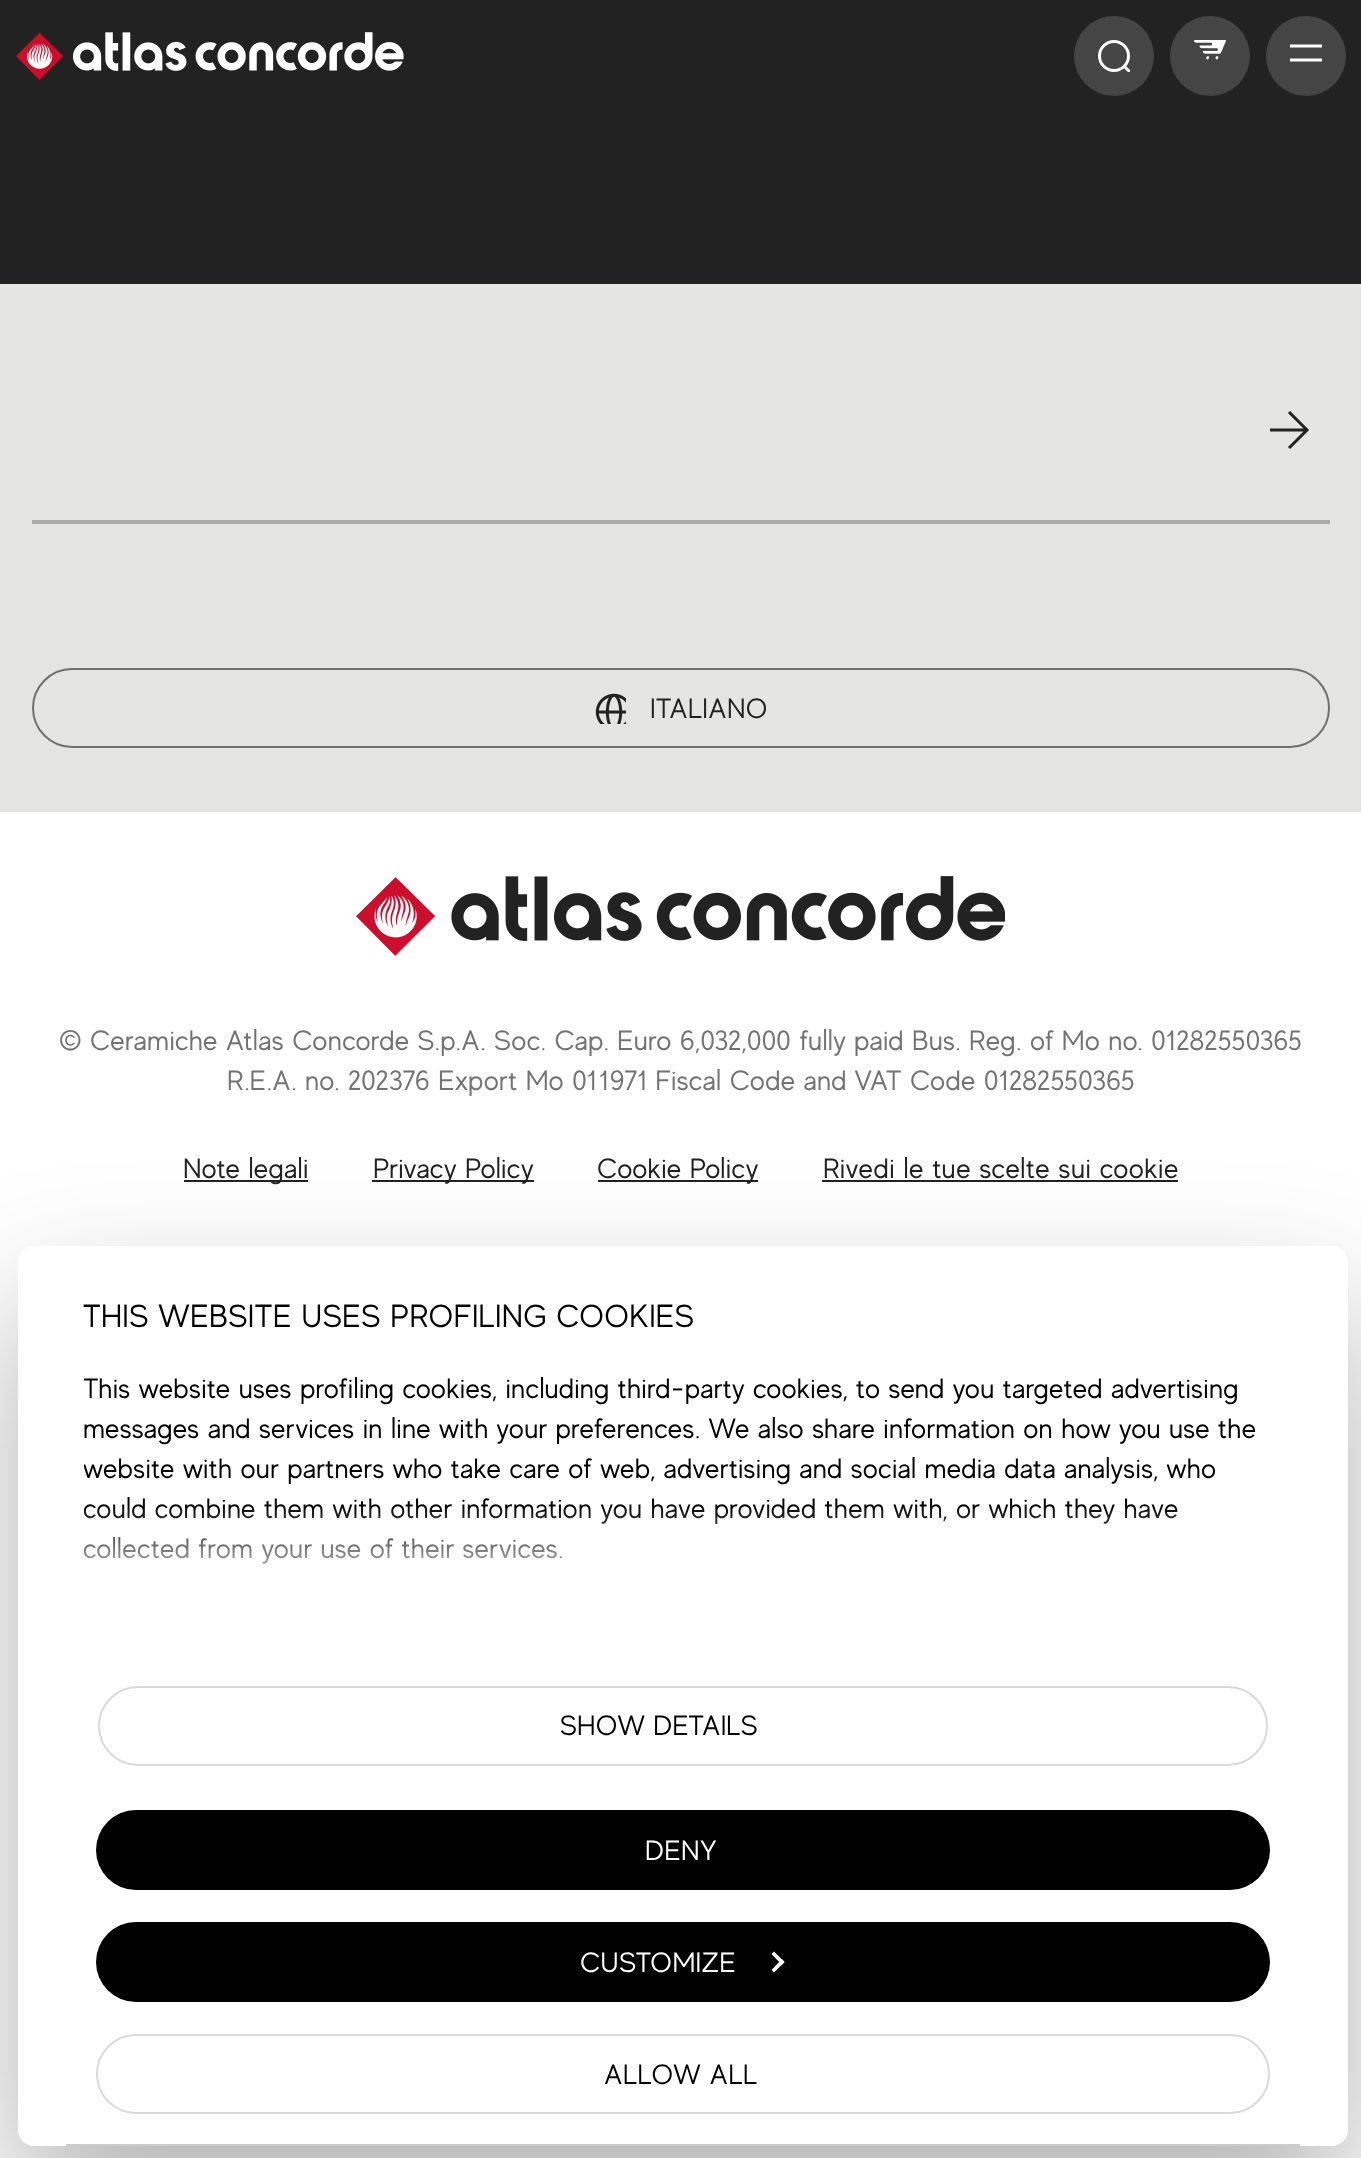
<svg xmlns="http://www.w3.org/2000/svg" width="1361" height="2158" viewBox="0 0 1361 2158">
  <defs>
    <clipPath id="clip1"><rect x="1098" y="40" width="32" height="32"/></clipPath>
    <clipPath id="clip2"><rect x="1290" y="40" width="32" height="32"/></clipPath>
    <clipPath id="clip3"><rect x="84" y="1368" width="1196" height="286"/></clipPath>
    <linearGradient id="g1" gradientUnits="userSpaceOnUse" x1="669" y1="1654" x2="669" y2="1504"><stop offset="0" stop-color="rgb(255,255,255)"/><stop offset="0.5" stop-color="rgb(255,255,255)" stop-opacity="0.8"/><stop offset="1" stop-color="rgb(255,255,255)" stop-opacity="0"/></linearGradient>
  </defs>
  <rect width="100%" height="100%" fill="rgb(255,255,255)"/>
  <rect x="0" y="0" width="1361" height="284" fill="rgb(34,34,34)"/>
  <image x="16" y="32" width="388" height="48" href="pic1.png"/>
  <circle cx="1114" cy="56" r="40" fill="rgb(69,69,69)"/>
  <circle cx="1114" cy="56" r="14.5" fill="none" stroke="rgb(255,255,255)" stroke-width="3"/>
  <g clip-path="url(#clip1)">
    <path d="M1136 78L1124 66" fill="none" stroke="rgb(255,255,255)" stroke-width="3"/>
  </g>
  <circle cx="1210" cy="56" r="40" fill="rgb(69,69,69)"/>
  <image x="1194" y="40" width="32" height="20" href="pic2.png"/>
  <circle cx="1306" cy="56" r="40" fill="rgb(69,69,69)"/>
  <g clip-path="url(#clip2)">
    <path d="M1290 60H1330M1290 74H1330M1290 46H1330" fill="none" stroke="rgb(255,255,255)" stroke-width="3"/>
  </g>
  <rect x="0" y="284" width="1361" height="528" fill="rgb(229,229,227)"/>
  <path d="M1289 448L1307 430L1289 412M1307 430H1270" fill="none" stroke="rgb(34,34,34)" stroke-width="3"/>
  <rect x="32" y="520" width="1298" height="4" fill="rgb(171,171,169)"/>
  <rect x="33" y="669" width="1296" height="78" rx="39" fill="none" stroke="rgb(112,112,111)" stroke-width="2"/>
  <image x="595" y="693" width="31" height="31" href="pic3.png"/>
  <text x="650" y="718" font-family="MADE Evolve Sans" font-size="28" letter-spacing="0.32" fill="rgb(34,34,34)">ITALIANO</text>
  <image x="356" y="876" width="649" height="80" href="pic4.png"/>
  <g font-family="MADE Evolve Sans" font-size="28" letter-spacing="0.32" fill="rgb(115,115,115)">
    <text x="59" y="1050">© Ceramiche Atlas Concorde S.p.A. Soc. Cap. Euro 6,032,000 fully paid Bus. Reg. of Mo no. 01282550365</text>
    <text x="227" y="1090">R.E.A. no. 202376 Export Mo 011971 Fiscal Code and VAT Code 01282550365</text>
  </g>
  <rect x="184" y="1180" width="124" height="2" fill="rgb(34,34,34)"/>
  <text x="183" y="1178" font-family="MADE Evolve Sans" font-size="28" letter-spacing="0.32" fill="rgb(34,34,34)">Note legali</text>
  <rect x="372" y="1180" width="162" height="2" fill="rgb(34,34,34)"/>
  <text x="373" y="1178" font-family="MADE Evolve Sans" font-size="28" letter-spacing="0.32" fill="rgb(34,34,34)">Privacy Policy</text>
  <rect x="598" y="1180" width="160" height="2" fill="rgb(34,34,34)"/>
  <text x="597" y="1178" font-family="MADE Evolve Sans" font-size="28" letter-spacing="0.32" fill="rgb(34,34,34)">Cookie Policy</text>
  <text x="823" y="1178" font-family="MADE Evolve Sans" font-size="28" letter-spacing="0.55" fill="rgb(34,34,34)">Rivedi le tue scelte sui cookie</text>
  <rect x="822" y="1180" width="356" height="2" fill="rgb(34,34,34)"/>
  <rect x="18" y="1310" width="1330" height="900" rx="16" fill="rgba(0,0,0,0.3)" filter="blur(68px)"/>
  <rect x="18" y="1246" width="1330" height="900" rx="16" fill="rgb(255,255,255)"/>
  <text x="83" y="1327" font-family="MADE Evolve Sans" font-size="32" letter-spacing="0.5" fill="rgb(0,0,0)">THIS WEBSITE USES PROFILING COOKIES</text>
  <g clip-path="url(#clip3)">
    <text x="83" y="1398" font-family="MADE Evolve Sans" font-size="28" letter-spacing="0.32" fill="rgb(0,0,0)">This website uses profiling cookies, including third-party cookies, to send you targeted advertising</text>
  </g>
  <text x="83" y="1438" font-family="MADE Evolve Sans" font-size="28" letter-spacing="0.32" fill="rgb(0,0,0)">messages and services in line with your preferences. We also share information on how you use the</text>
  <g clip-path="url(#clip3)">
    <g font-family="MADE Evolve Sans" font-size="28" letter-spacing="0.32" fill="rgb(0,0,0)">
      <text>
        <tspan x="83" y="1478">website with our partners who take care of web, advertising and social media data analysis, who</tspan>
        <tspan x="83" y="1518">could combine them with other information you have provided them with, or which they have</tspan>
        <tspan x="83" y="1558">collected from your use of their services.</tspan>
      </text>
    </g>
  </g>
  <rect x="84" y="1506" width="1093" height="58" fill="url(#g1)"/>
  <rect x="99" y="1687" width="1168" height="78" rx="39" fill="none" stroke="rgb(218,218,216)" stroke-width="2"/>
  <text x="560" y="1735" font-family="MADE Evolve Sans" font-size="28" letter-spacing="0.32" fill="rgb(0,0,0)">SHOW DETAILS</text>
  <rect x="66" y="2144" width="1234" height="2" fill="rgb(204,204,204)"/>
  <rect x="96" y="1810" width="1174" height="80" rx="40" fill="rgb(0,0,0)"/>
  <text x="645" y="1860" font-family="MADE Evolve Sans" font-size="28" letter-spacing="0.55" fill="rgb(255,255,255)">DENY</text>
  <rect x="96" y="1922" width="1174" height="80" rx="40" fill="rgb(0,0,0)"/>
  <text x="580" y="1972" font-family="MADE Evolve Sans" font-size="28" letter-spacing="0.55" fill="rgb(255,255,255)">CUSTOMIZE</text>
  <path d="M774 1951.5L784.5 1962L782 1965L771.5 1954Z" fill="rgb(255,255,255)"/>
  <path d="M782 1959L784.5 1962L774 1972.5L771.5 1970Z" fill="rgb(255,255,255)"/>
  <rect x="97" y="2035" width="1172" height="78" rx="39" fill="none" stroke="rgb(218,218,216)" stroke-width="2"/>
  <text x="604" y="2084" font-family="MADE Evolve Sans" font-size="28" letter-spacing="0.55" fill="rgb(0,0,0)">ALLOW ALL</text>
</svg>
